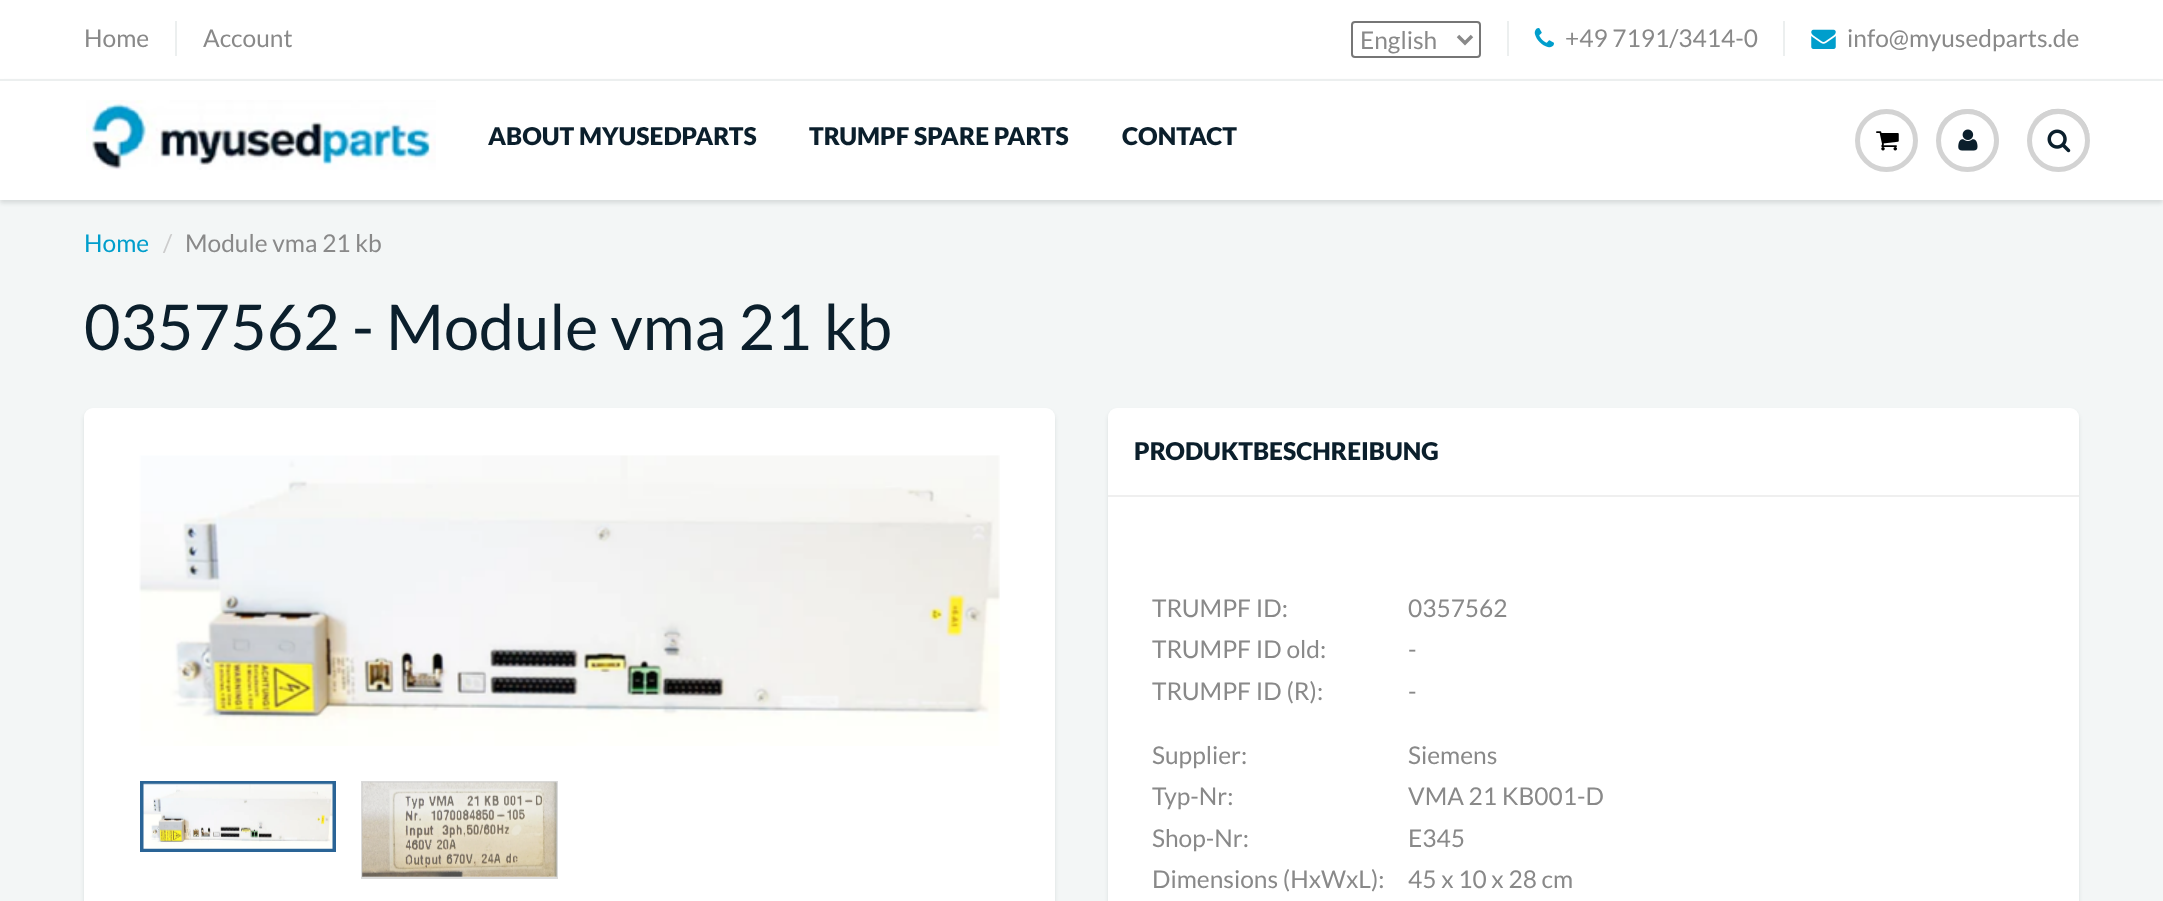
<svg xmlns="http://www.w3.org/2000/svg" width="2163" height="901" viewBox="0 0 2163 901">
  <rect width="100%" height="100%" fill="rgb(255,255,255)"/>
  <text x="84" y="47" font-family="Lato" font-size="24.5" fill="rgb(137,137,137)">Home</text>
  <rect x="175" y="21" width="2" height="35" fill="rgb(236,239,239)"/>
  <text x="203" y="47" font-family="Lato" font-size="24.5" fill="rgb(137,137,137)">Account</text>
  <rect x="1352" y="22" width="128" height="35" rx="3" fill="none" stroke="rgb(118,118,118)" stroke-width="2"/>
  <path d="M1458 36L1465 43L1472 36" fill="none" stroke="rgb(137,137,137)" stroke-width="3.5"/>
  <text x="1360" y="49" font-family="Lato" font-size="24.5" fill="rgb(137,137,137)">English</text>
  <rect x="1507" y="21" width="2" height="35" fill="rgb(236,239,239)"/>
  <image x="1534" y="28" width="20" height="20" href="pic1.png"/>
  <text x="1565" y="47" font-family="Lato" font-size="24.5" fill="rgb(137,137,137)">+49 7191/3414-0</text>
  <rect x="1783" y="21" width="2" height="35" fill="rgb(236,239,239)"/>
  <image x="1811" y="29" width="25" height="20" href="pic2.png"/>
  <text x="1847" y="47" font-family="Lato" font-size="24.5" fill="rgb(137,137,137)">info@myusedparts.de</text>
  <rect x="0" y="200" width="2163" height="701" fill="rgb(243,246,246)"/>
  <rect x="0" y="82" width="2163" height="121" fill="rgba(11,25,28,0.12)" filter="blur(2px)"/>
  <rect x="0" y="81" width="2163" height="119" fill="rgb(255,255,255)"/>
  <rect x="0" y="79" width="2163" height="2" fill="rgb(236,239,239)"/>
  <image x="86" y="100" width="350" height="70" href="pic3.png"/>
  <g font-family="Lato" font-size="24.5" font-weight="900" fill="rgb(11,31,44)">
    <text x="488" y="145">ABOUT MYUSEDPARTS</text>
    <text x="809" y="145">TRUMPF SPARE PARTS</text>
    <text x="1122" y="145">CONTACT</text>
  </g>
  <circle cx="1886.5" cy="140.5" r="29" fill="none" stroke="rgb(211,211,211)" stroke-width="5"/>
  <image x="1876" y="131" width="23" height="20" href="pic4.png"/>
  <path d="M1967 110C1993 110 2007 141 1991 161C2010 139 1991 104 1961 110C1955 111 1950 114 1945 118C1939 124 1936 133 1936 141C1936 124 1950 110 1967 110Z" fill="rgb(201,203,203)"/>
  <circle cx="1967.5" cy="140.5" r="29" fill="rgb(255,255,255)" stroke="rgb(211,211,211)" stroke-width="5"/>
  <image x="1958" y="129" width="20" height="22" href="pic5.png"/>
  <path d="M2058 110C2075 110 2090 124 2090 141C2091 109 2049 97 2032 123C2038 115 2048 110 2058 110Z" fill="rgb(201,203,203)"/>
  <circle cx="2058.5" cy="140.5" r="29" fill="rgb(255,255,255)" stroke="rgb(211,211,211)" stroke-width="5"/>
  <image x="2047" y="129" width="24" height="24" href="pic6.png"/>
  <text x="84" y="252" font-family="Lato" font-size="24.5" fill="rgb(0,158,204)">Home</text>
  <text x="163" y="252" font-family="Lato" font-size="24.5" fill="rgb(204,204,204)">/</text>
  <text x="185" y="252" font-family="Lato" font-size="24.5" fill="rgb(137,137,137)">Module vma 21 kb</text>
  <text x="84" y="350" font-family="Lato" font-size="63" fill="rgb(11,31,44)">0357562 - Module vma 21 kb</text>
  <rect x="84" y="411" width="971" height="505" rx="9" fill="rgba(11,25,28,0.1)" filter="blur(2px)"/>
  <rect x="84" y="408" width="971" height="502" rx="9" fill="rgb(255,255,255)"/>
  <image x="139" y="455" width="861" height="291" href="pic7.png"/>
  <rect x="142" y="783" width="192" height="67" fill="none" stroke="rgb(42,100,150)" stroke-width="4"/>
  <image x="143" y="783" width="190" height="66" href="pic8.png"/>
  <rect x="362" y="782" width="195" height="96" fill="none" stroke="rgb(219,219,219)" stroke-width="2"/>
  <image x="362" y="781" width="195" height="96" href="pic9.png"/>
  <rect x="1108" y="411" width="971" height="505" rx="9" fill="rgba(11,25,28,0.1)" filter="blur(2px)"/>
  <rect x="1108" y="408" width="971" height="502" rx="9" fill="rgb(255,255,255)"/>
  <rect x="1108" y="495" width="971" height="2" fill="rgb(239,239,239)"/>
  <text x="1134" y="460" font-family="Lato" font-size="24.5" font-weight="900" fill="rgb(11,31,44)">PRODUKTBESCHREIBUNG</text>
  <g font-family="Lato" font-size="24.5" fill="rgb(137,137,137)">
    <text x="1152" y="617">TRUMPF ID:</text>
    <text x="1408" y="617">0357562</text>
    <text x="1152" y="658">TRUMPF ID old:</text>
    <text x="1408" y="658">-</text>
    <text x="1152" y="700">TRUMPF ID (R):</text>
    <text x="1408" y="700">-</text>
    <text x="1152" y="764">Supplier:</text>
    <text x="1408" y="764">Siemens</text>
    <text x="1152" y="805">Typ-Nr:</text>
    <text x="1408" y="805">VMA 21 KB001-D</text>
    <text x="1152" y="847">Shop-Nr:</text>
    <text x="1408" y="847">E345</text>
    <text x="1152" y="888">Dimensions (HxWxL):</text>
    <text x="1408" y="888">45 x 10 x 28 cm</text>
  </g>
</svg>
